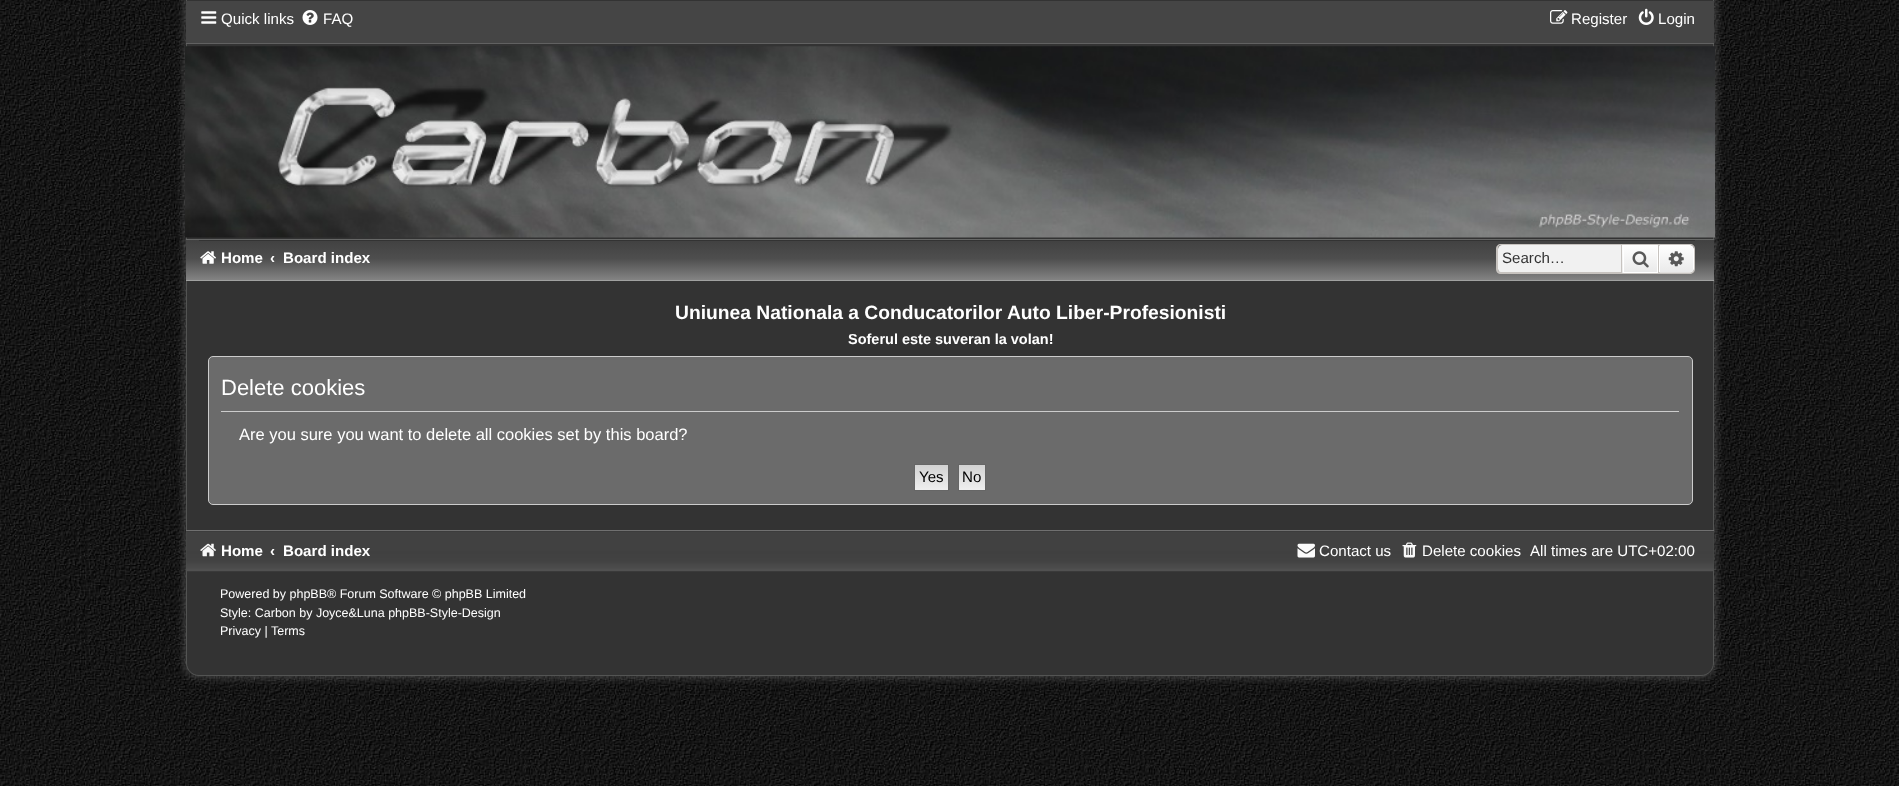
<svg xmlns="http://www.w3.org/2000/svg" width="1899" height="786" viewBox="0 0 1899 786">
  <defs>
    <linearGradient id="g1" gradientUnits="userSpaceOnUse" x1="950" y1="240" x2="950" y2="302"><stop offset="0" stop-color="rgb(65,65,65)"/><stop offset="0.3" stop-color="rgb(78,78,78)"/><stop offset="0.67" stop-color="rgb(135,135,135)"/><stop offset="1" stop-color="rgb(250,250,250)"/></linearGradient>
    <linearGradient id="g2" gradientUnits="userSpaceOnUse" x1="1640" y1="245" x2="1640" y2="273"><stop offset="0" stop-color="rgb(255,255,255)"/><stop offset="1" stop-color="rgb(233,233,233)"/></linearGradient>
    <linearGradient id="g3" gradientUnits="userSpaceOnUse" x1="1676" y1="245" x2="1676" y2="273"><stop offset="0" stop-color="rgb(255,255,255)"/><stop offset="1" stop-color="rgb(233,233,233)"/></linearGradient>
    <linearGradient id="g4" gradientUnits="userSpaceOnUse" x1="931" y1="465" x2="931" y2="490"><stop offset="0" stop-color="rgb(210,210,210)"/><stop offset="1" stop-color="rgb(239,239,239)"/></linearGradient>
    <linearGradient id="g5" gradientUnits="userSpaceOnUse" x1="972" y1="465" x2="972" y2="490"><stop offset="0" stop-color="rgb(210,210,210)"/><stop offset="1" stop-color="rgb(239,239,239)"/></linearGradient>
  </defs>
  <rect width="100%" height="100%" fill="rgb(255,255,255)"/>
  <image x="0" y="710" width="1899" height="76" href="pic1.png"/>
  <image x="0" y="0" width="1899" height="710" href="pic2.png"/>
  <rect x="184" y="-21" width="1532" height="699" rx="15" fill="rgba(255,255,255,0.2)" filter="blur(4px)"/>
  <path d="M186.5-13.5H1713.5V663C1713.5 670 1708 675.5 1701 675.5H199C192 675.5 186.5 670 186.5 663Z" fill="rgb(51,51,51)" stroke="rgb(83,84,83)"/>
  <rect x="186" y="1" width="1528" height="42" fill="rgb(69,69,69)"/>
  <image x="201" y="11" width="16" height="13" href="pic3.png"/>
  <text x="221" y="24" font-family="Liberation Sans" font-size="15.1" fill="rgb(255,255,255)">Quick links</text>
  <image x="302" y="10" width="16" height="15" href="pic4.png"/>
  <text x="323" y="24" font-family="Liberation Sans" font-size="15.1" fill="rgb(255,255,255)">FAQ</text>
  <image x="1550" y="10" width="18" height="14" href="pic5.png"/>
  <text x="1571" y="24" font-family="Liberation Sans" font-size="15.1" fill="rgb(255,255,255)">Register</text>
  <image x="1638" y="8" width="16" height="17" href="pic6.png"/>
  <text x="1658" y="24" font-family="Liberation Sans" font-size="15.1" fill="rgb(255,255,255)">Login</text>
  <rect x="186" y="43" width="1528" height="1" fill="rgb(97,97,97)"/>
  <image x="185" y="46" width="1530" height="192" href="pic7.png"/>
  <rect x="186" y="240" width="1528" height="40" fill="url(#g1)"/>
  <rect x="186" y="239" width="1528" height="1" fill="rgb(102,103,102)"/>
  <rect x="186" y="280" width="1528" height="1" fill="rgb(161,162,161)"/>
  <rect x="199" y="240" width="1496" height="1" fill="rgb(51,51,51)"/>
  <image x="200" y="251" width="16" height="13" href="pic8.png"/>
  <g font-family="Liberation Sans" font-size="15.1" font-weight="bold" fill="rgb(255,255,255)">
    <text x="221" y="263">Home</text>
    <text x="270" y="263">‹</text>
    <text x="283" y="263">Board index</text>
  </g>
  <path d="M1502 245H1621V273H1502C1500 273 1498 271 1498 269V249C1498 247 1500 245 1502 245Z" fill="rgb(241,241,241)"/>
  <path d="M1501 244H1621V274H1501C1498 274 1496 272 1496 269V249C1496 246 1498 244 1501 244ZM1501 245H1621V272H1501C1499 272 1498 271 1498 269V249C1498 247 1499 245 1501 245Z" fill="rgb(199,195,191)" fill-rule="evenodd"/>
  <text x="1502" y="263" font-family="Liberation Sans" font-size="15.1" fill="rgb(51,51,51)">Search…</text>
  <rect x="1622" y="245" width="35" height="28" fill="url(#g2)"/>
  <rect x="1623.5" y="245.5" width="34" height="27" fill="none" stroke="rgb(255,255,255)"/>
  <rect x="1621.5" y="244.5" width="37" height="29" fill="none" stroke="rgb(199,195,191)"/>
  <image x="1632" y="251" width="17" height="17" href="pic9.png"/>
  <path d="M1659.5 245.5H1690C1692 245.5 1693.5 247 1693.5 249V269C1693.5 271 1692 272.5 1690 272.5H1659.5Z" fill="url(#g3)" stroke="rgb(255,255,255)"/>
  <path d="M1659 244H1690C1693 244 1695 246 1695 249V269C1695 271.5 1693 274 1690 274H1659ZM1659 245H1690C1692 245 1694 246.5 1694 249V269C1694 271 1692 272.5 1690 272.5H1659Z" fill="rgb(199,195,191)" fill-rule="evenodd"/>
  <image x="1668" y="251" width="16" height="16" href="pic10.png"/>
  <text x="675" y="319" font-family="Liberation Sans" font-size="19.25" font-weight="bold" fill="rgb(255,255,255)">Uniunea Nationala a Conducatorilor Auto Liber-Profesionisti</text>
  <text x="848" y="344" font-family="Liberation Sans" font-size="14.5" font-weight="bold" fill="rgb(255,255,255)">Soferul este suveran la volan!</text>
  <rect x="208.5" y="356.5" width="1484" height="148" rx="4.5" fill="rgb(107,107,107)" stroke="rgb(204,204,204)"/>
  <rect x="221" y="411" width="1458" height="1" fill="rgb(204,204,204)"/>
  <text x="221" y="395" font-family="Liberation Sans" font-size="22" fill="rgb(255,255,255)">Delete cookies</text>
  <text x="239" y="440" font-family="Liberation Sans" font-size="16.5" fill="rgb(255,255,255)">Are you sure you want to delete all cookies set by this board?</text>
  <rect x="915" y="465" width="33" height="25" fill="url(#g4)"/>
  <rect x="914.5" y="464.5" width="34" height="26" fill="none" stroke="rgb(102,102,102)"/>
  <text x="919" y="482" font-family="Liberation Sans" font-size="15.1" fill="rgb(0,0,0)">Yes</text>
  <rect x="959" y="465" width="26" height="25" fill="url(#g5)"/>
  <rect x="958.5" y="464.5" width="27" height="26" fill="none" stroke="rgb(102,102,102)"/>
  <text x="962" y="482" font-family="Liberation Sans" font-size="15.1" fill="rgb(0,0,0)">No</text>
  <image x="186" y="531" width="1528" height="41" href="pic11.png"/>
  <rect x="186" y="530" width="1528" height="1" fill="rgb(112,112,112)"/>
  <image x="200" y="543" width="16" height="14" href="pic12.png"/>
  <g font-family="Liberation Sans" font-size="15.1" font-weight="bold" fill="rgb(255,255,255)">
    <text x="221" y="556">Home</text>
    <text x="270" y="556">‹</text>
    <text x="283" y="556">Board index</text>
  </g>
  <image x="1297" y="543" width="18" height="15" href="pic13.png"/>
  <text x="1319" y="556" font-family="Liberation Sans" font-size="15.1" fill="rgb(255,255,255)">Contact us</text>
  <image x="1402" y="542" width="15" height="16" href="pic14.png"/>
  <g font-family="Liberation Sans" font-size="15.1" fill="rgb(255,255,255)">
    <text x="1422" y="556">Delete cookies</text>
    <text x="1530" y="556">All times are UTC+02:00</text>
  </g>
  <g font-family="Liberation Sans" font-size="12.5" fill="rgb(255,255,255)">
    <text>
      <tspan x="220" y="598">Powered by phpBB® Forum Software © phpBB Limited</tspan>
      <tspan x="220" y="617">Style: Carbon by Joyce&amp;Luna phpBB-Style-Design</tspan>
      <tspan x="220" y="635">Privacy | Terms</tspan>
    </text>
  </g>
</svg>
